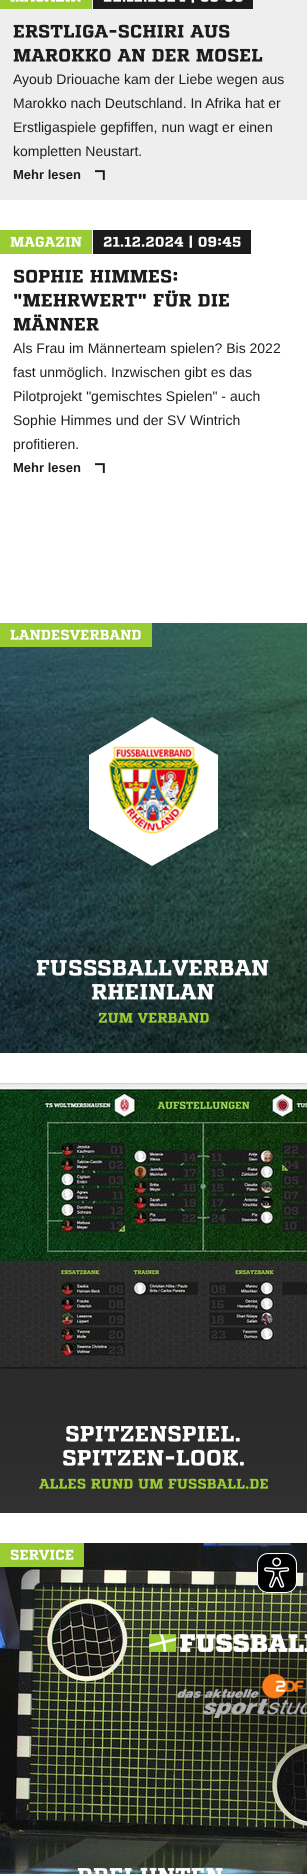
<svg xmlns="http://www.w3.org/2000/svg" width="307" height="1874" viewBox="0 0 307 1874">
  <defs>
    <linearGradient id="g1" gradientUnits="userSpaceOnUse" x1="154" y1="1422" x2="154" y2="1513"><stop offset="0" stop-color="rgb(43,43,43)"/><stop offset="0.5" stop-color="rgb(45,45,45)"/><stop offset="1" stop-color="rgb(49,49,49)"/></linearGradient>
  </defs>
  <rect width="100%" height="100%" fill="rgb(255,255,255)"/>
  <rect x="0" y="0" width="307" height="200" fill="rgb(238,238,238)"/>
  <rect x="0" y="0" width="92" height="9" fill="rgb(153,204,51)"/>
  <image x="10" y="0" width="71" height="2" href="pic1.png"/>
  <rect x="93" y="0" width="160" height="9" fill="rgb(28,28,28)"/>
  <image x="103" y="0" width="140" height="3" href="pic2.png"/>
  <image x="13" y="24" width="217" height="14" href="pic3.png"/>
  <image x="13" y="48" width="250" height="14" href="pic4.png"/>
  <g font-family="Liberation Sans" font-size="14" fill="rgb(28,28,28)">
    <text>
      <tspan x="13" y="84">Ayoub Driouache kam der Liebe wegen aus</tspan>
      <tspan x="13" y="108">Marokko nach Deutschland. In Afrika hat er</tspan>
      <tspan x="13" y="132">Erstligaspiele gepfiffen, nun wagt er einen</tspan>
      <tspan x="13" y="156">kompletten Neustart.</tspan>
    </text>
  </g>
  <text x="13" y="179" font-family="Liberation Sans" font-size="13" font-weight="bold" fill="rgb(28,28,28)">Mehr lesen</text>
  <image x="95" y="170" width="10" height="10" href="pic5.png"/>
  <rect x="0" y="230" width="92" height="24" fill="rgb(153,204,51)"/>
  <image x="10" y="236" width="72" height="11" href="pic6.png"/>
  <rect x="93" y="230" width="158" height="24" fill="rgb(28,28,28)"/>
  <image x="103" y="235" width="138" height="13" href="pic7.png"/>
  <image x="13" y="269" width="165" height="14" href="pic8.png"/>
  <image x="14" y="290" width="215" height="17" href="pic9.png"/>
  <image x="13" y="314" width="86" height="17" href="pic10.png"/>
  <g font-family="Liberation Sans" font-size="14" fill="rgb(28,28,28)">
    <text>
      <tspan x="13" y="353">Als Frau im Männerteam spielen? Bis 2022</tspan>
      <tspan x="13" y="377">fast unmöglich. Inzwischen gibt es das</tspan>
      <tspan x="13" y="401">Pilotprojekt "gemischtes Spielen" - auch</tspan>
      <tspan x="13" y="425">Sophie Himmes und der SV Wintrich</tspan>
      <tspan x="13" y="449">profitieren.</tspan>
    </text>
  </g>
  <text x="13" y="472" font-family="Liberation Sans" font-size="13" font-weight="bold" fill="rgb(28,28,28)">Mehr lesen</text>
  <image x="95" y="463" width="10" height="10" href="pic11.png"/>
  <image x="0" y="623" width="307" height="430" href="pic12.png"/>
  <rect x="0" y="623" width="152" height="24" fill="rgb(153,204,51)"/>
  <image x="10" y="629" width="131" height="11" href="pic13.png"/>
  <path d="M218 755V829L152 866L89 829V755L152 717Z" fill="rgb(255,255,255)"/>
  <image x="109" y="746" width="90" height="88" href="pic14.png"/>
  <image x="36" y="960" width="31" height="16" href="pic15.png"/>
  <image x="69" y="959" width="28" height="17" href="pic16.png"/>
  <image x="98" y="959" width="171" height="17" href="pic17.png"/>
  <image x="92" y="984" width="122" height="16" href="pic18.png"/>
  <image x="98" y="1012" width="111" height="11" href="pic19.png"/>
  <image x="0" y="1083" width="307" height="339" href="pic20.png"/>
  <rect x="0" y="1422" width="307" height="91" fill="url(#g1)"/>
  <image x="66" y="1425" width="174" height="17" href="pic21.png"/>
  <image x="63" y="1449" width="181" height="17" href="pic22.png"/>
  <image x="39" y="1478" width="229" height="11" href="pic23.png"/>
  <image x="0" y="1543" width="307" height="331" href="pic24.png"/>
  <rect x="0" y="1543" width="84" height="24" fill="rgb(153,204,51)"/>
  <image x="10" y="1549" width="64" height="11" href="pic25.png"/>
  <image x="77" y="1868" width="146" height="6" href="pic26.png"/>
  <image x="257" y="1553" width="40" height="40" href="pic27.png"/>
</svg>
